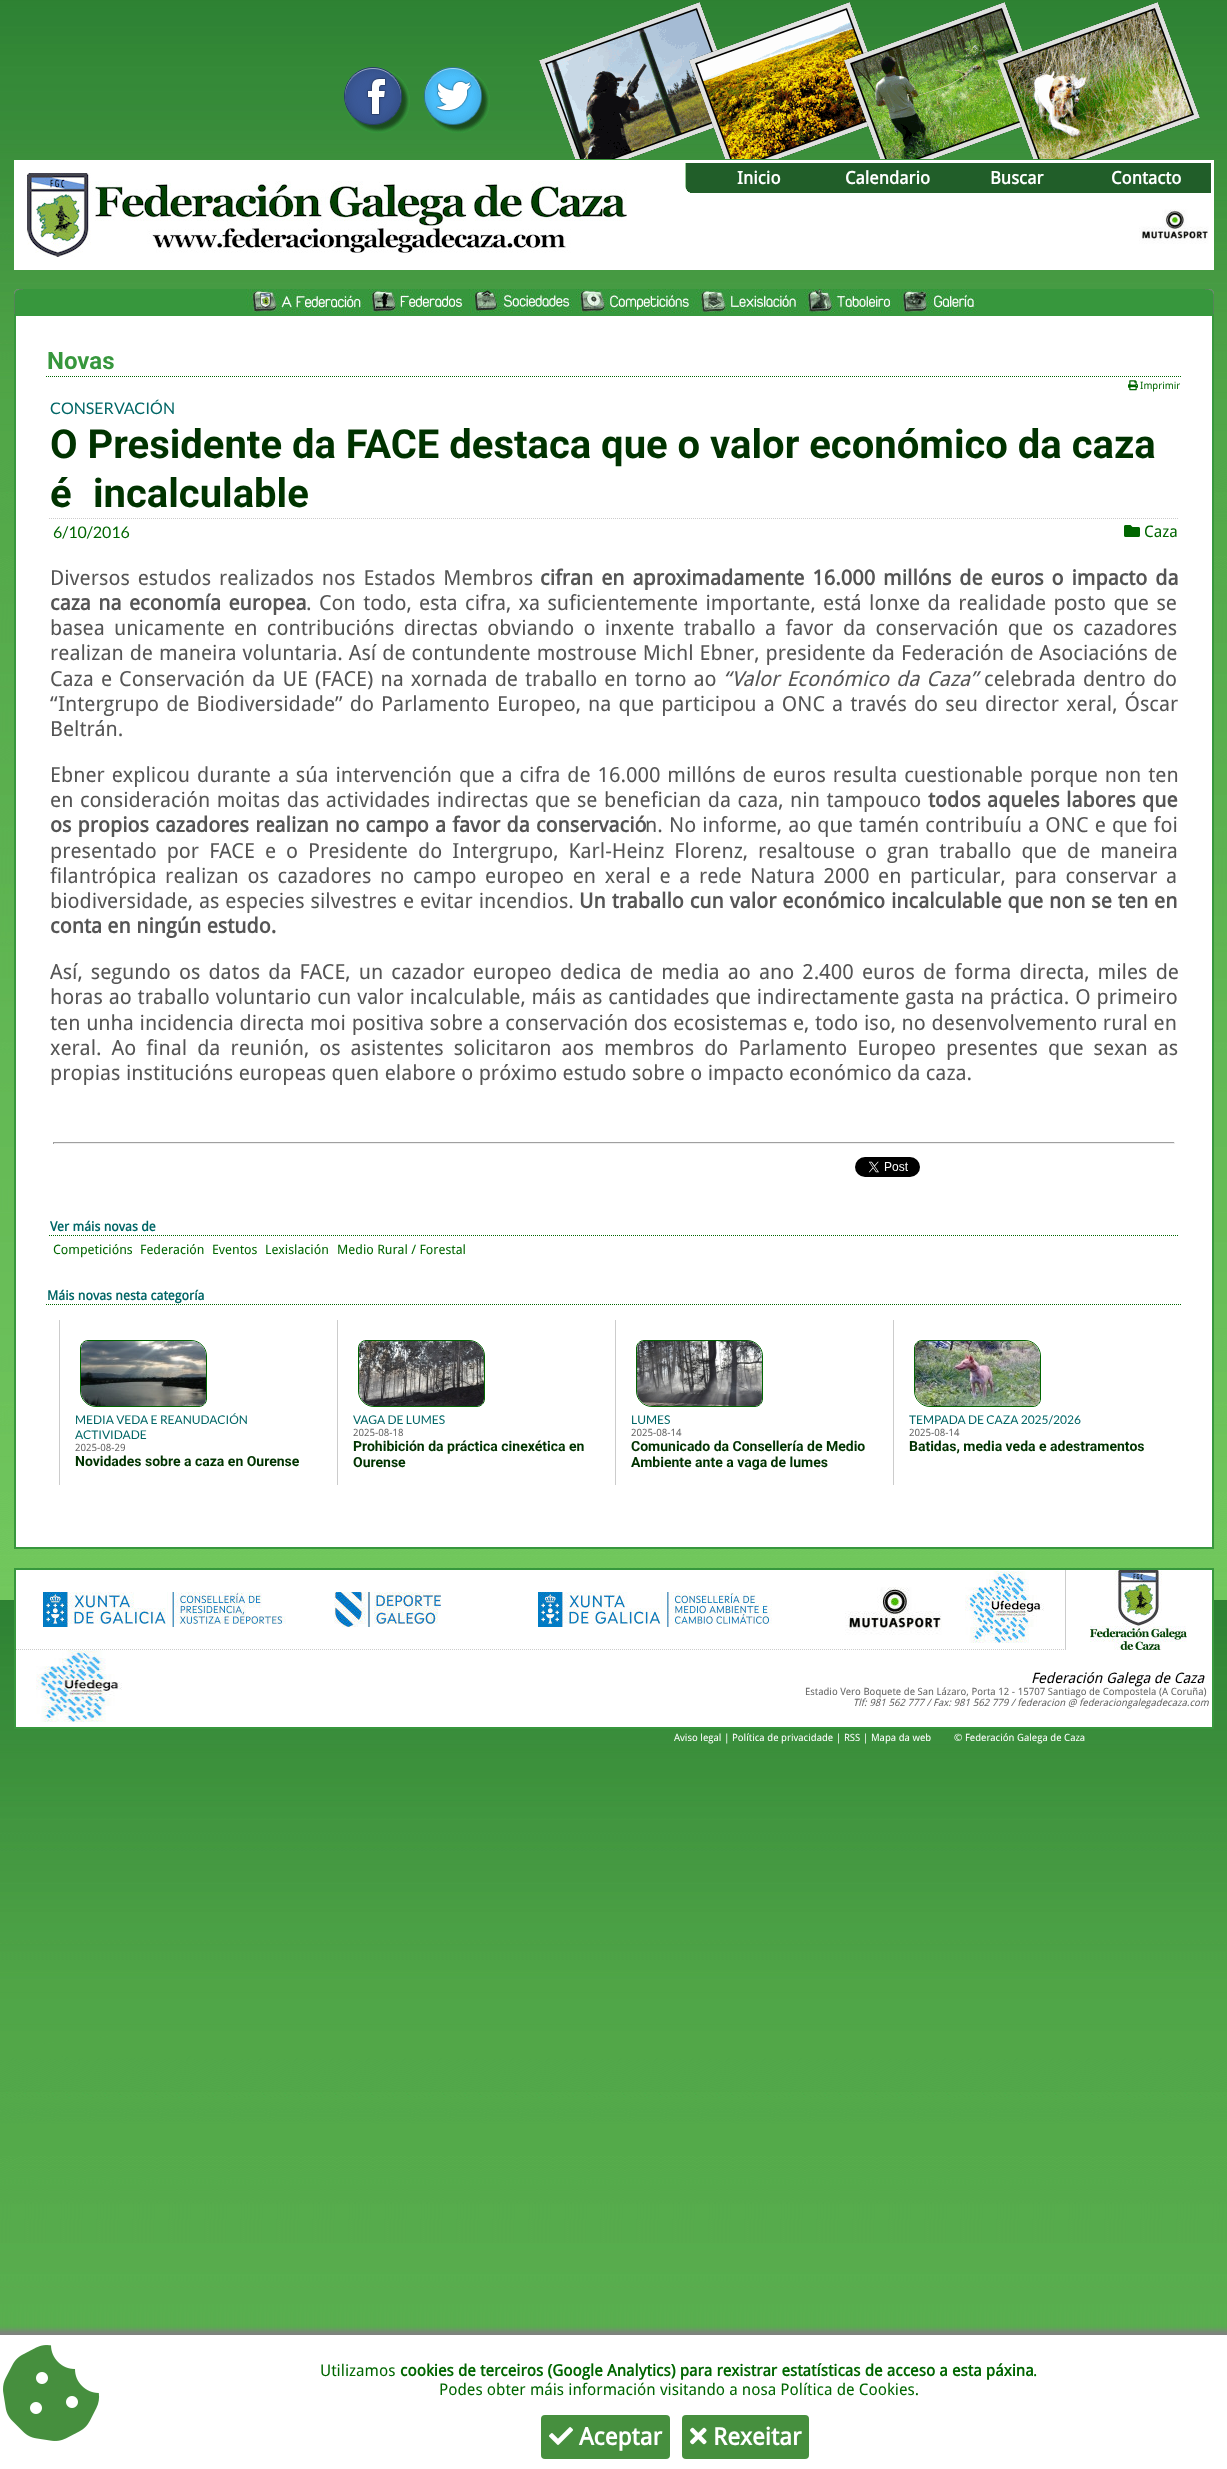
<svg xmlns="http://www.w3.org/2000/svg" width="1227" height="2469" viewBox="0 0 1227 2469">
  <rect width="100%" height="100%" fill="rgb(255,255,255)"/>
  <image x="0" y="0" width="1227" height="2335" href="pic1.png"/>
  <image x="344" y="67" width="66" height="66" href="pic2.png"/>
  <image x="424" y="67" width="66" height="66" href="pic3.png"/>
  <image x="539" y="2" width="661" height="157" href="pic4.png"/>
  <rect x="14" y="160" width="1200" height="110" fill="rgb(255,255,255)"/>
  <image x="27" y="173" width="600" height="84" href="pic5.png"/>
  <image x="685" y="163" width="10" height="30" href="pic6.png"/>
  <rect x="695" y="163" width="516" height="30" fill="rgb(33,94,41)"/>
  <g font-family="Droid Sans" font-size="17.5" font-weight="bold" fill="rgb(255,255,255)">
    <text x="737" y="184">Inicio</text>
    <text x="845" y="184">Calendario</text>
    <text x="990" y="184">Buscar</text>
    <text x="1111" y="184">Contacto</text>
  </g>
  <image x="1139" y="209" width="70" height="35" href="pic7.png"/>
  <image x="14" y="289" width="9" height="25" href="pic8.png"/>
  <rect x="23" y="289" width="1182" height="25" fill="rgb(55,151,61)"/>
  <image x="246" y="289" width="120" height="24" href="pic9.png"/>
  <image x="368" y="289" width="96" height="24" href="pic10.png"/>
  <image x="469" y="289" width="104" height="24" href="pic11.png"/>
  <image x="576" y="289" width="120" height="24" href="pic12.png"/>
  <image x="696" y="289" width="104" height="24" href="pic13.png"/>
  <image x="804" y="289" width="88" height="24" href="pic14.png"/>
  <image x="897" y="289" width="80" height="24" href="pic15.png"/>
  <image x="1205" y="289" width="9" height="25" href="pic16.png"/>
  <rect x="16" y="316" width="1196" height="1231" fill="rgb(255,255,255)"/>
  <rect x="14.5" y="314.5" width="1199" height="1234" fill="none" stroke="rgb(55,151,61)"/>
  <rect x="15.5" y="315.5" width="1197" height="1232" fill="none" stroke="rgb(55,151,61)"/>
  <path d="M46 376.5H1182" fill="none" stroke="rgb(0,102,0)" stroke-dasharray="1 1"/>
  <text x="47" y="369" font-family="Roboto" font-size="24" font-weight="bold" fill="rgb(55,151,61)">Novas</text>
  <image x="1128" y="380" width="10" height="11" href="pic17.png"/>
  <text x="1140" y="389" font-family="Droid Sans" font-size="10" fill="rgb(0,102,0)">Imprimir</text>
  <text x="50" y="414" font-family="Lato" font-size="16" fill="rgb(0,102,102)">CONSERVACIÓN</text>
  <path d="M49 518.5H1179" fill="none" stroke="rgb(204,204,204)" stroke-dasharray="1 1"/>
  <g font-family="Roboto" font-size="40" font-weight="bold" fill="rgb(0,51,0)">
    <text>
      <tspan x="50" y="458">O Presidente da FACE destaca que o valor económico da caza</tspan>
      <tspan x="50" y="507">é</tspan>
    </text>
    <text x="93" y="507">incalculable</text>
  </g>
  <text x="53" y="538" font-family="Lato" font-size="16" fill="rgb(0,102,0)">6/10/2016</text>
  <image x="1124" y="525" width="16" height="12" href="pic18.png"/>
  <text x="1144" y="537" font-family="Droid Sans" font-size="16" fill="rgb(0,102,0)">Caza</text>
  <text x="50" y="585" word-spacing="2.5" font-family="Droid Sans" font-size="20.8" fill="rgb(85,85,85)">Diversos estudos realizados nos Estados Membros</text>
  <g font-family="Droid Sans" font-size="20.8" font-weight="bold" fill="rgb(85,85,85)">
    <text x="540" y="585" word-spacing="2.5">cifran en aproximadamente 16.000 millóns de euros o impacto da</text>
    <text x="50" y="610" word-spacing="2">caza na economía europea</text>
  </g>
  <g font-family="Droid Sans" font-size="20.8" fill="rgb(85,85,85)">
    <text x="306" y="610" word-spacing="2">. Con todo, esta cifra, xa suficientemente importante, está lonxe da realidade posto que se</text>
    <text>
      <tspan x="50" y="635" word-spacing="3.9">basea unicamente en contribucións directas obviando o inxente traballo a favor da conservación que os cazadores</tspan>
      <tspan x="50" y="660" word-spacing="0.6">realizan de maneira voluntaria. Así de contundente mostrouse Michl Ebner, presidente da Federación de Asociacións de</tspan>
      <tspan x="50" y="686" word-spacing="1.7">Caza e Conservación da UE (FACE) na xornada de traballo en torno ao</tspan>
    </text>
  </g>
  <text x="723" y="686" word-spacing="1.7" font-family="Droid Sans" font-size="20.8" font-style="italic" fill="rgb(85,85,85)">“Valor Económico da Caza”</text>
  <g font-family="Droid Sans" font-size="20.8" fill="rgb(85,85,85)">
    <text x="984" y="686" word-spacing="1.7">celebrada dentro do</text>
    <text>
      <tspan x="50" y="711" word-spacing="1.7">“Intergrupo de Biodiversidade” do Parlamento Europeo, na que participou a ONC a través do seu director xeral, Óscar</tspan>
      <tspan x="50" y="736">Beltrán.</tspan>
    </text>
    <text>
      <tspan x="50" y="782" word-spacing="1.5">Ebner explicou durante a súa intervención que a cifra de 16.000 millóns de euros resulta cuestionable porque non ten</tspan>
      <tspan x="50" y="807" word-spacing="1.1">en consideración moitas das actividades indirectas que se benefician da caza, nin tampouco</tspan>
    </text>
  </g>
  <g font-family="Droid Sans" font-size="20.8" font-weight="bold" fill="rgb(85,85,85)">
    <text x="928" y="807" word-spacing="1.1">todos aqueles labores que</text>
    <text x="50" y="832" word-spacing="0.75">os propios cazadores realizan no campo a favor da conservació</text>
  </g>
  <g font-family="Droid Sans" font-size="20.8" fill="rgb(85,85,85)">
    <text x="645" y="832" word-spacing="0.75">n. No informe, ao que tamén contribuíu a ONC e que foi</text>
    <text>
      <tspan x="50" y="858" word-spacing="4.6">presentado por FACE e o Presidente do Intergrupo, Karl-Heinz Florenz, resaltouse o gran traballo que de maneira</tspan>
      <tspan x="50" y="883" word-spacing="3.25">filantrópica realizan os cazadores no campo europeo en xeral e a rede Natura 2000 en particular, para conservar a</tspan>
      <tspan x="50" y="908" word-spacing="0.5">biodiversidade, as especies silvestres e evitar incendios.</tspan>
    </text>
  </g>
  <g font-family="Droid Sans" font-size="20.8" font-weight="bold" fill="rgb(85,85,85)">
    <text x="579" y="908" word-spacing="0.5">Un traballo cun valor económico incalculable que non se ten en</text>
    <text x="50" y="933">conta en ningún estudo.</text>
  </g>
  <g font-family="Droid Sans" font-size="20.8" fill="rgb(85,85,85)">
    <text>
      <tspan x="50" y="979" word-spacing="2.75">Así, segundo os datos da FACE, un cazador europeo dedica de media ao ano 2.400 euros de forma directa, miles de</tspan>
      <tspan x="50" y="1004" word-spacing="0.5">horas ao traballo voluntario cun valor incalculable, máis as cantidades que indirectamente gasta na práctica. O primeiro</tspan>
      <tspan x="50" y="1030" word-spacing="0.3">ten unha incidencia directa moi positiva sobre a conservación dos ecosistemas e, todo iso, no desenvolvemento rural en</tspan>
      <tspan x="50" y="1055" word-spacing="4.6">xeral. Ao final da reunión, os asistentes solicitaron aos membros do Parlamento Europeo presentes que sexan as</tspan>
      <tspan x="50" y="1080">propias institucións europeas quen elabore o próximo estudo sobre o impacto económico da caza.</tspan>
    </text>
  </g>
  <rect x="53" y="1142" width="1122" height="1" fill="rgb(159,159,159)"/>
  <rect x="1174" y="1142" width="1" height="2" fill="rgb(238,238,238)"/>
  <rect x="53" y="1143" width="1122" height="1" fill="rgb(238,238,238)"/>
  <rect x="53" y="1142" width="1" height="2" fill="rgb(159,159,159)"/>
  <image x="855" y="1157" width="65" height="20" href="pic19.png"/>
  <path d="M49 1235.5H1179" fill="none" stroke="rgb(0,102,0)" stroke-dasharray="1 1"/>
  <text x="50" y="1231" font-family="Droid Sans" font-size="13" font-weight="bold" fill="rgb(0,102,102)">Ver máis novas de</text>
  <g font-family="Droid Sans" font-size="13" fill="rgb(0,102,0)">
    <text x="53" y="1254">Competicións</text>
    <text x="140" y="1254">Federación</text>
    <text x="212" y="1254">Eventos</text>
    <text x="265" y="1254">Lexislación</text>
    <text x="337" y="1254">Medio Rural / Forestal</text>
  </g>
  <path d="M46 1304.5H1182" fill="none" stroke="rgb(0,102,0)" stroke-dasharray="1 1"/>
  <text x="47" y="1300" font-family="Droid Sans" font-size="13" font-weight="bold" fill="rgb(0,102,102)">Máis novas nesta categoría</text>
  <rect x="59" y="1320" width="1" height="165" fill="rgb(204,204,204)"/>
  <path d="M88 1340.5H191C199.5 1340.5 206.5 1347.5 206.5 1356V1399C206.5 1403 203 1406.5 199 1406.5H96C87.5 1406.5 80.5 1399.5 80.5 1391V1348C80.5 1344 84 1340.5 88 1340.5Z" fill="none" stroke="rgb(0,102,0)"/>
  <image x="81" y="1341" width="125" height="65" href="pic20.png"/>
  <g font-family="Lato" font-size="12" fill="rgb(0,102,102)">
    <text>
      <tspan x="75" y="1424">MEDIA VEDA E REANUDACIÓN</tspan>
      <tspan x="75" y="1439">ACTIVIDADE</tspan>
    </text>
  </g>
  <text x="75" y="1451" font-family="Droid Sans" font-size="10" fill="rgb(102,102,102)">2025-08-29</text>
  <text x="75" y="1466" font-family="Roboto" font-size="14" font-weight="bold" fill="rgb(0,51,0)">Novidades sobre a caza en Ourense</text>
  <rect x="337" y="1320" width="1" height="165" fill="rgb(204,204,204)"/>
  <path d="M366 1340.5H469C477.5 1340.5 484.5 1347.5 484.5 1356V1399C484.5 1403 481 1406.5 477 1406.5H374C365.5 1406.5 358.5 1399.5 358.5 1391V1348C358.5 1344 362 1340.5 366 1340.5Z" fill="none" stroke="rgb(0,102,0)"/>
  <image x="359" y="1341" width="125" height="65" href="pic21.png"/>
  <text x="353" y="1424" font-family="Lato" font-size="12" fill="rgb(0,102,102)">VAGA DE LUMES</text>
  <text x="353" y="1436" font-family="Droid Sans" font-size="10" fill="rgb(102,102,102)">2025-08-18</text>
  <g font-family="Roboto" font-size="14" font-weight="bold" fill="rgb(0,51,0)">
    <text>
      <tspan x="353" y="1451">Prohibición da práctica cinexética en</tspan>
      <tspan x="353" y="1467">Ourense</tspan>
    </text>
  </g>
  <rect x="615" y="1320" width="1" height="165" fill="rgb(204,204,204)"/>
  <path d="M644 1340.5H747C755.5 1340.5 762.5 1347.5 762.5 1356V1399C762.5 1403 759 1406.5 755 1406.5H652C643.5 1406.5 636.5 1399.5 636.5 1391V1348C636.5 1344 640 1340.5 644 1340.5Z" fill="none" stroke="rgb(0,102,0)"/>
  <image x="637" y="1341" width="125" height="65" href="pic22.png"/>
  <text x="631" y="1424" font-family="Lato" font-size="12" fill="rgb(0,102,102)">LUMES</text>
  <text x="631" y="1436" font-family="Droid Sans" font-size="10" fill="rgb(102,102,102)">2025-08-14</text>
  <g font-family="Roboto" font-size="14" font-weight="bold" fill="rgb(0,51,0)">
    <text>
      <tspan x="631" y="1451">Comunicado da Consellería de Medio</tspan>
      <tspan x="631" y="1467">Ambiente ante a vaga de lumes</tspan>
    </text>
  </g>
  <rect x="893" y="1320" width="1" height="165" fill="rgb(204,204,204)"/>
  <path d="M922 1340.5H1025C1033.5 1340.5 1040.5 1347.5 1040.5 1356V1399C1040.5 1403 1037 1406.5 1033 1406.5H930C921.5 1406.5 914.5 1399.5 914.5 1391V1348C914.5 1344 918 1340.5 922 1340.5Z" fill="none" stroke="rgb(0,102,0)"/>
  <image x="915" y="1341" width="125" height="65" href="pic23.png"/>
  <text x="909" y="1424" font-family="Lato" font-size="12" fill="rgb(0,102,102)">TEMPADA DE CAZA 2025/2026</text>
  <text x="909" y="1436" font-family="Droid Sans" font-size="10" fill="rgb(102,102,102)">2025-08-14</text>
  <text x="909" y="1451" font-family="Roboto" font-size="14" font-weight="bold" fill="rgb(0,51,0)">Batidas, media veda e adestramentos</text>
  <rect x="16" y="1570" width="1196" height="157" fill="rgb(255,255,255)"/>
  <rect x="14.5" y="1568.5" width="1199" height="160" fill="none" stroke="rgb(55,151,61)"/>
  <rect x="15.5" y="1569.5" width="1197" height="158" fill="none" stroke="rgb(55,151,61)"/>
  <path d="M16 1649.5H464" fill="none" stroke="rgb(204,204,204)" stroke-dasharray="1 1"/>
  <image x="43" y="1592" width="398" height="35" href="pic24.png"/>
  <path d="M464 1649.5H845" fill="none" stroke="rgb(204,204,204)" stroke-dasharray="1 1"/>
  <image x="536" y="1592" width="236" height="35" href="pic25.png"/>
  <path d="M845 1649.5H945" fill="none" stroke="rgb(204,204,204)" stroke-dasharray="1 1"/>
  <image x="845" y="1587" width="97" height="48" href="pic26.png"/>
  <path d="M945 1649.5H1065" fill="none" stroke="rgb(204,204,204)" stroke-dasharray="1 1"/>
  <image x="965" y="1571" width="79" height="72" href="pic27.png"/>
  <rect x="1065" y="1570" width="1" height="80" fill="rgb(204,204,204)"/>
  <image x="1090" y="1570" width="97" height="80" href="pic28.png"/>
  <image x="36" y="1650" width="86" height="72" href="pic29.png"/>
  <text x="1031" y="1683" font-family="Droid Sans" font-size="14.4" font-style="italic" fill="rgb(0,0,0)">Federación Galega de Caza</text>
  <text x="805" y="1695" font-family="Droid Sans" font-size="10" fill="rgb(102,102,102)">Estadio Vero Boquete de San Lázaro, Porta 12 - 15707 Santiago de Compostela (A Coruña)</text>
  <text x="853" y="1706" font-family="Droid Sans" font-size="10" font-style="italic" fill="rgb(102,102,102)">Tlf: 981 562 777 / Fax: 981 562 779 / federacion @ federaciongalegadecaza.com</text>
  <g font-family="Droid Sans" font-size="10" fill="rgb(255,255,255)">
    <text x="674" y="1741">Aviso legal | Política de privacidade | RSS | Mapa da web</text>
    <text x="954" y="1741">© Federación Galega de Caza</text>
  </g>
  <rect x="-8" y="2330" width="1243" height="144" fill="rgb(128,128,128)" filter="blur(2.5px)"/>
  <rect x="0" y="2335" width="1227" height="134" fill="rgb(255,255,255)"/>
  <image x="3" y="2345" width="97" height="96" href="pic30.png"/>
  <text x="320" y="2376" font-family="Droid Sans" font-size="16" fill="rgb(0,102,0)">Utilizamos</text>
  <text x="400" y="2376" font-family="Droid Sans" font-size="16" font-weight="bold" fill="rgb(0,102,0)">cookies de terceiros (Google Analytics) para rexistrar estatísticas de acceso a esta páxina</text>
  <g font-family="Droid Sans" font-size="16" fill="rgb(0,102,0)">
    <text x="1033" y="2376">.</text>
    <text x="439" y="2395">Podes obter máis información visitando a nosa Política de Cookies.</text>
  </g>
  <rect x="541" y="2415" width="129" height="44" rx="4" fill="rgb(70,143,62)"/>
  <image x="549" y="2427" width="24" height="18" href="pic31.png"/>
  <text x="579" y="2445" font-family="Droid Sans" font-size="24" font-weight="bold" fill="rgb(255,255,255)">Aceptar</text>
  <rect x="682" y="2415" width="127" height="44" rx="4" fill="rgb(70,143,62)"/>
  <image x="690" y="2427" width="17" height="18" href="pic32.png"/>
  <text x="713" y="2445" font-family="Droid Sans" font-size="24" font-weight="bold" fill="rgb(255,255,255)">Rexeitar</text>
</svg>
